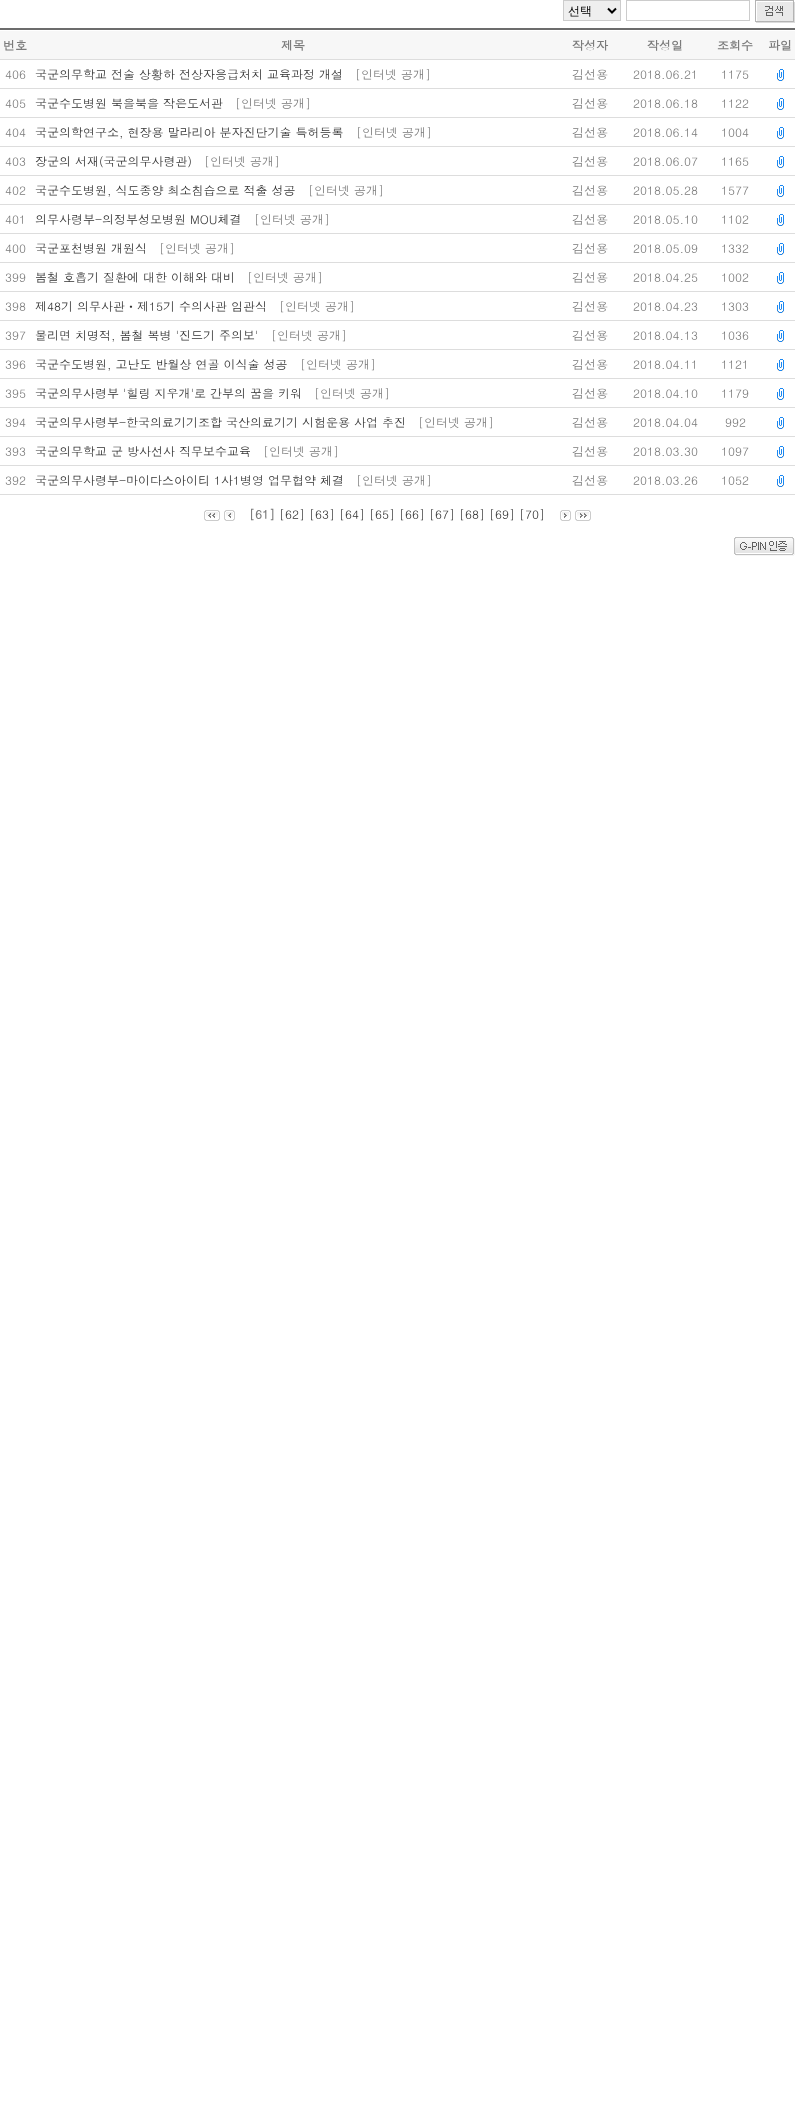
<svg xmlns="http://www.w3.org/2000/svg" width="795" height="2109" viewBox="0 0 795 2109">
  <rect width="100%" height="100%" fill="rgb(255,255,255)"/>
  <rect x="563.5" y="0.5" width="57" height="20" fill="rgb(239,239,239)" stroke="rgb(204,204,204)"/>
  <path d="M608 8.5L612 12.5L616 8.5" fill="none" stroke="rgb(0,0,0)" stroke-width="2"/>
  <text x="568" y="15" font-family="WenQuanYi Zen Hei" font-size="12" font-weight="500" fill="rgb(0,0,0)">선택</text>
  <rect x="626.5" y="0.5" width="123" height="20" fill="none" stroke="rgb(204,204,204)"/>
  <image x="755" y="0" width="40" height="23" href="pic1.png"/>
  <rect x="0" y="31" width="795" height="28" fill="rgb(247,247,247)"/>
  <g font-family="Dotum" font-size="12" font-weight="bold" fill="rgb(123,123,123)">
    <text x="3" y="50">번호</text>
    <text x="281" y="50">제목</text>
    <text x="572" y="50">작성자</text>
    <text x="647" y="50">작성일</text>
    <text x="717" y="50">조회수</text>
  </g>
  <rect x="0" y="59" width="795" height="1" fill="rgb(221,221,221)"/>
  <rect x="0" y="28" width="795" height="2" fill="rgb(108,108,108)"/>
  <text x="768" y="50" font-family="Dotum" font-size="12" font-weight="bold" fill="rgb(123,123,123)">파일</text>
  <rect x="0" y="88" width="795" height="1" fill="rgb(221,221,221)"/>
  <image x="777" y="69" width="7" height="12" href="pic2.png"/>
  <text x="5" y="79" font-family="Dotum" font-size="12" fill="rgb(123,123,123)">406</text>
  <text x="35" y="79" font-family="Dotum" font-size="12" fill="rgb(51,51,51)">국군의무학교 전술 상황하 전상자응급처치 교육과정 개설</text>
  <g font-family="Dotum" font-size="12" fill="rgb(123,123,123)">
    <text x="355" y="79">[인터넷 공개]</text>
    <text x="572" y="79">김선용</text>
    <text x="633" y="79">2018.06.21</text>
    <text x="721" y="79">1175</text>
  </g>
  <rect x="0" y="117" width="795" height="1" fill="rgb(221,221,221)"/>
  <image x="777" y="98" width="7" height="12" href="pic2.png"/>
  <text x="5" y="108" font-family="Dotum" font-size="12" fill="rgb(123,123,123)">405</text>
  <text x="35" y="108" font-family="Dotum" font-size="12" fill="rgb(51,51,51)">국군수도병원 북을북을 작은도서관</text>
  <g font-family="Dotum" font-size="12" fill="rgb(123,123,123)">
    <text x="235" y="108">[인터넷 공개]</text>
    <text x="572" y="108">김선용</text>
    <text x="633" y="108">2018.06.18</text>
    <text x="721" y="108">1122</text>
  </g>
  <rect x="0" y="146" width="795" height="1" fill="rgb(221,221,221)"/>
  <image x="777" y="127" width="7" height="12" href="pic2.png"/>
  <text x="5" y="137" font-family="Dotum" font-size="12" fill="rgb(123,123,123)">404</text>
  <text x="35" y="137" font-family="Dotum" font-size="12" fill="rgb(51,51,51)">국군의학연구소, 현장용 말라리아 분자진단기술 특허등록</text>
  <g font-family="Dotum" font-size="12" fill="rgb(123,123,123)">
    <text x="356" y="137">[인터넷 공개]</text>
    <text x="572" y="137">김선용</text>
    <text x="633" y="137">2018.06.14</text>
    <text x="721" y="137">1004</text>
  </g>
  <rect x="0" y="175" width="795" height="1" fill="rgb(221,221,221)"/>
  <image x="777" y="156" width="7" height="12" href="pic2.png"/>
  <text x="5" y="166" font-family="Dotum" font-size="12" fill="rgb(123,123,123)">403</text>
  <text x="35" y="166" font-family="Dotum" font-size="12" fill="rgb(51,51,51)">장군의 서재(국군의무사령관)</text>
  <g font-family="Dotum" font-size="12" fill="rgb(123,123,123)">
    <text x="204" y="166">[인터넷 공개]</text>
    <text x="572" y="166">김선용</text>
    <text x="633" y="166">2018.06.07</text>
    <text x="721" y="166">1165</text>
  </g>
  <rect x="0" y="204" width="795" height="1" fill="rgb(221,221,221)"/>
  <image x="777" y="185" width="7" height="12" href="pic2.png"/>
  <text x="5" y="195" font-family="Dotum" font-size="12" fill="rgb(123,123,123)">402</text>
  <text x="35" y="195" font-family="Dotum" font-size="12" fill="rgb(51,51,51)">국군수도병원, 식도종양 최소침습으로 적출 성공</text>
  <g font-family="Dotum" font-size="12" fill="rgb(123,123,123)">
    <text x="308" y="195">[인터넷 공개]</text>
    <text x="572" y="195">김선용</text>
    <text x="633" y="195">2018.05.28</text>
    <text x="721" y="195">1577</text>
  </g>
  <rect x="0" y="233" width="795" height="1" fill="rgb(221,221,221)"/>
  <image x="777" y="214" width="7" height="12" href="pic2.png"/>
  <text x="5" y="224" font-family="Dotum" font-size="12" fill="rgb(123,123,123)">401</text>
  <text x="35" y="224" font-family="Dotum" font-size="12" fill="rgb(51,51,51)">의무사령부-의정부성모병원 MOU체결</text>
  <g font-family="Dotum" font-size="12" fill="rgb(123,123,123)">
    <text x="254" y="224">[인터넷 공개]</text>
    <text x="572" y="224">김선용</text>
    <text x="633" y="224">2018.05.10</text>
    <text x="721" y="224">1102</text>
  </g>
  <rect x="0" y="262" width="795" height="1" fill="rgb(221,221,221)"/>
  <image x="777" y="243" width="7" height="12" href="pic2.png"/>
  <text x="5" y="253" font-family="Dotum" font-size="12" fill="rgb(123,123,123)">400</text>
  <text x="35" y="253" font-family="Dotum" font-size="12" fill="rgb(51,51,51)">국군포천병원 개원식</text>
  <g font-family="Dotum" font-size="12" fill="rgb(123,123,123)">
    <text x="159" y="253">[인터넷 공개]</text>
    <text x="572" y="253">김선용</text>
    <text x="633" y="253">2018.05.09</text>
    <text x="721" y="253">1332</text>
  </g>
  <rect x="0" y="291" width="795" height="1" fill="rgb(221,221,221)"/>
  <image x="777" y="272" width="7" height="12" href="pic2.png"/>
  <text x="5" y="282" font-family="Dotum" font-size="12" fill="rgb(123,123,123)">399</text>
  <text x="35" y="282" font-family="Dotum" font-size="12" fill="rgb(51,51,51)">봄철 호흡기 질환에 대한 이해와 대비</text>
  <g font-family="Dotum" font-size="12" fill="rgb(123,123,123)">
    <text x="247" y="282">[인터넷 공개]</text>
    <text x="572" y="282">김선용</text>
    <text x="633" y="282">2018.04.25</text>
    <text x="721" y="282">1002</text>
  </g>
  <rect x="0" y="320" width="795" height="1" fill="rgb(221,221,221)"/>
  <image x="777" y="301" width="7" height="12" href="pic2.png"/>
  <text x="5" y="311" font-family="Dotum" font-size="12" fill="rgb(123,123,123)">398</text>
  <text x="35" y="311" font-family="Dotum" font-size="12" fill="rgb(51,51,51)">제48기 의무사관ㆍ제15기 수의사관 임관식</text>
  <g font-family="Dotum" font-size="12" fill="rgb(123,123,123)">
    <text x="279" y="311">[인터넷 공개]</text>
    <text x="572" y="311">김선용</text>
    <text x="633" y="311">2018.04.23</text>
    <text x="721" y="311">1303</text>
  </g>
  <rect x="0" y="349" width="795" height="1" fill="rgb(221,221,221)"/>
  <image x="777" y="330" width="7" height="12" href="pic2.png"/>
  <text x="5" y="340" font-family="Dotum" font-size="12" fill="rgb(123,123,123)">397</text>
  <text x="35" y="340" font-family="Dotum" font-size="12" fill="rgb(51,51,51)">물리면 치명적, 봄철 복병 '진드기 주의보'</text>
  <g font-family="Dotum" font-size="12" fill="rgb(123,123,123)">
    <text x="271" y="340">[인터넷 공개]</text>
    <text x="572" y="340">김선용</text>
    <text x="633" y="340">2018.04.13</text>
    <text x="721" y="340">1036</text>
  </g>
  <rect x="0" y="378" width="795" height="1" fill="rgb(221,221,221)"/>
  <image x="777" y="359" width="7" height="12" href="pic2.png"/>
  <text x="5" y="369" font-family="Dotum" font-size="12" fill="rgb(123,123,123)">396</text>
  <text x="35" y="369" font-family="Dotum" font-size="12" fill="rgb(51,51,51)">국군수도병원, 고난도 반월상 연골 이식술 성공</text>
  <g font-family="Dotum" font-size="12" fill="rgb(123,123,123)">
    <text x="300" y="369">[인터넷 공개]</text>
    <text x="572" y="369">김선용</text>
    <text x="633" y="369">2018.04.11</text>
    <text x="721" y="369">1121</text>
  </g>
  <rect x="0" y="407" width="795" height="1" fill="rgb(221,221,221)"/>
  <image x="777" y="388" width="7" height="12" href="pic2.png"/>
  <text x="5" y="398" font-family="Dotum" font-size="12" fill="rgb(123,123,123)">395</text>
  <text x="35" y="398" font-family="Dotum" font-size="12" fill="rgb(51,51,51)">국군의무사령부 '힐링 지우개'로 간부의 꿈을 키워</text>
  <g font-family="Dotum" font-size="12" fill="rgb(123,123,123)">
    <text x="314" y="398">[인터넷 공개]</text>
    <text x="572" y="398">김선용</text>
    <text x="633" y="398">2018.04.10</text>
    <text x="721" y="398">1179</text>
  </g>
  <rect x="0" y="436" width="795" height="1" fill="rgb(221,221,221)"/>
  <image x="777" y="417" width="7" height="12" href="pic2.png"/>
  <text x="5" y="427" font-family="Dotum" font-size="12" fill="rgb(123,123,123)">394</text>
  <text x="35" y="427" font-family="Dotum" font-size="12" fill="rgb(51,51,51)">국군의무사령부-한국의료기기조합 국산의료기기 시험운용 사업 추진</text>
  <g font-family="Dotum" font-size="12" fill="rgb(123,123,123)">
    <text x="418" y="427">[인터넷 공개]</text>
    <text x="572" y="427">김선용</text>
    <text x="633" y="427">2018.04.04</text>
    <text x="725" y="427">992</text>
  </g>
  <rect x="0" y="465" width="795" height="1" fill="rgb(221,221,221)"/>
  <image x="777" y="446" width="7" height="12" href="pic2.png"/>
  <text x="5" y="456" font-family="Dotum" font-size="12" fill="rgb(123,123,123)">393</text>
  <text x="35" y="456" font-family="Dotum" font-size="12" fill="rgb(51,51,51)">국군의무학교 군 방사선사 직무보수교육</text>
  <g font-family="Dotum" font-size="12" fill="rgb(123,123,123)">
    <text x="263" y="456">[인터넷 공개]</text>
    <text x="572" y="456">김선용</text>
    <text x="633" y="456">2018.03.30</text>
    <text x="721" y="456">1097</text>
  </g>
  <rect x="0" y="494" width="795" height="1" fill="rgb(221,221,221)"/>
  <image x="777" y="475" width="7" height="12" href="pic2.png"/>
  <text x="5" y="485" font-family="Dotum" font-size="12" fill="rgb(123,123,123)">392</text>
  <text x="35" y="485" font-family="Dotum" font-size="12" fill="rgb(51,51,51)">국군의무사령부-마이다스아이티 1사1병영 업무협약 체결</text>
  <g font-family="Dotum" font-size="12" fill="rgb(123,123,123)">
    <text x="356" y="485">[인터넷 공개]</text>
    <text x="572" y="485">김선용</text>
    <text x="633" y="485">2018.03.26</text>
    <text x="721" y="485">1052</text>
  </g>
  <image x="204" y="510" width="16" height="11" href="pic3.png"/>
  <image x="224" y="510" width="11" height="11" href="pic4.png"/>
  <text x="249" y="519" font-family="Dotum" font-size="12" font-weight="bold" fill="rgb(123,123,123)">[61]</text>
  <text x="279" y="519" font-family="Dotum" font-size="12" fill="rgb(51,51,51)">[62] [63] [64] [65] [66] [67] [68] [69] [70]</text>
  <image x="560" y="510" width="11" height="11" href="pic5.png"/>
  <image x="575" y="510" width="16" height="11" href="pic6.png"/>
  <image x="734" y="537" width="61" height="19" href="pic7.png"/>
</svg>
